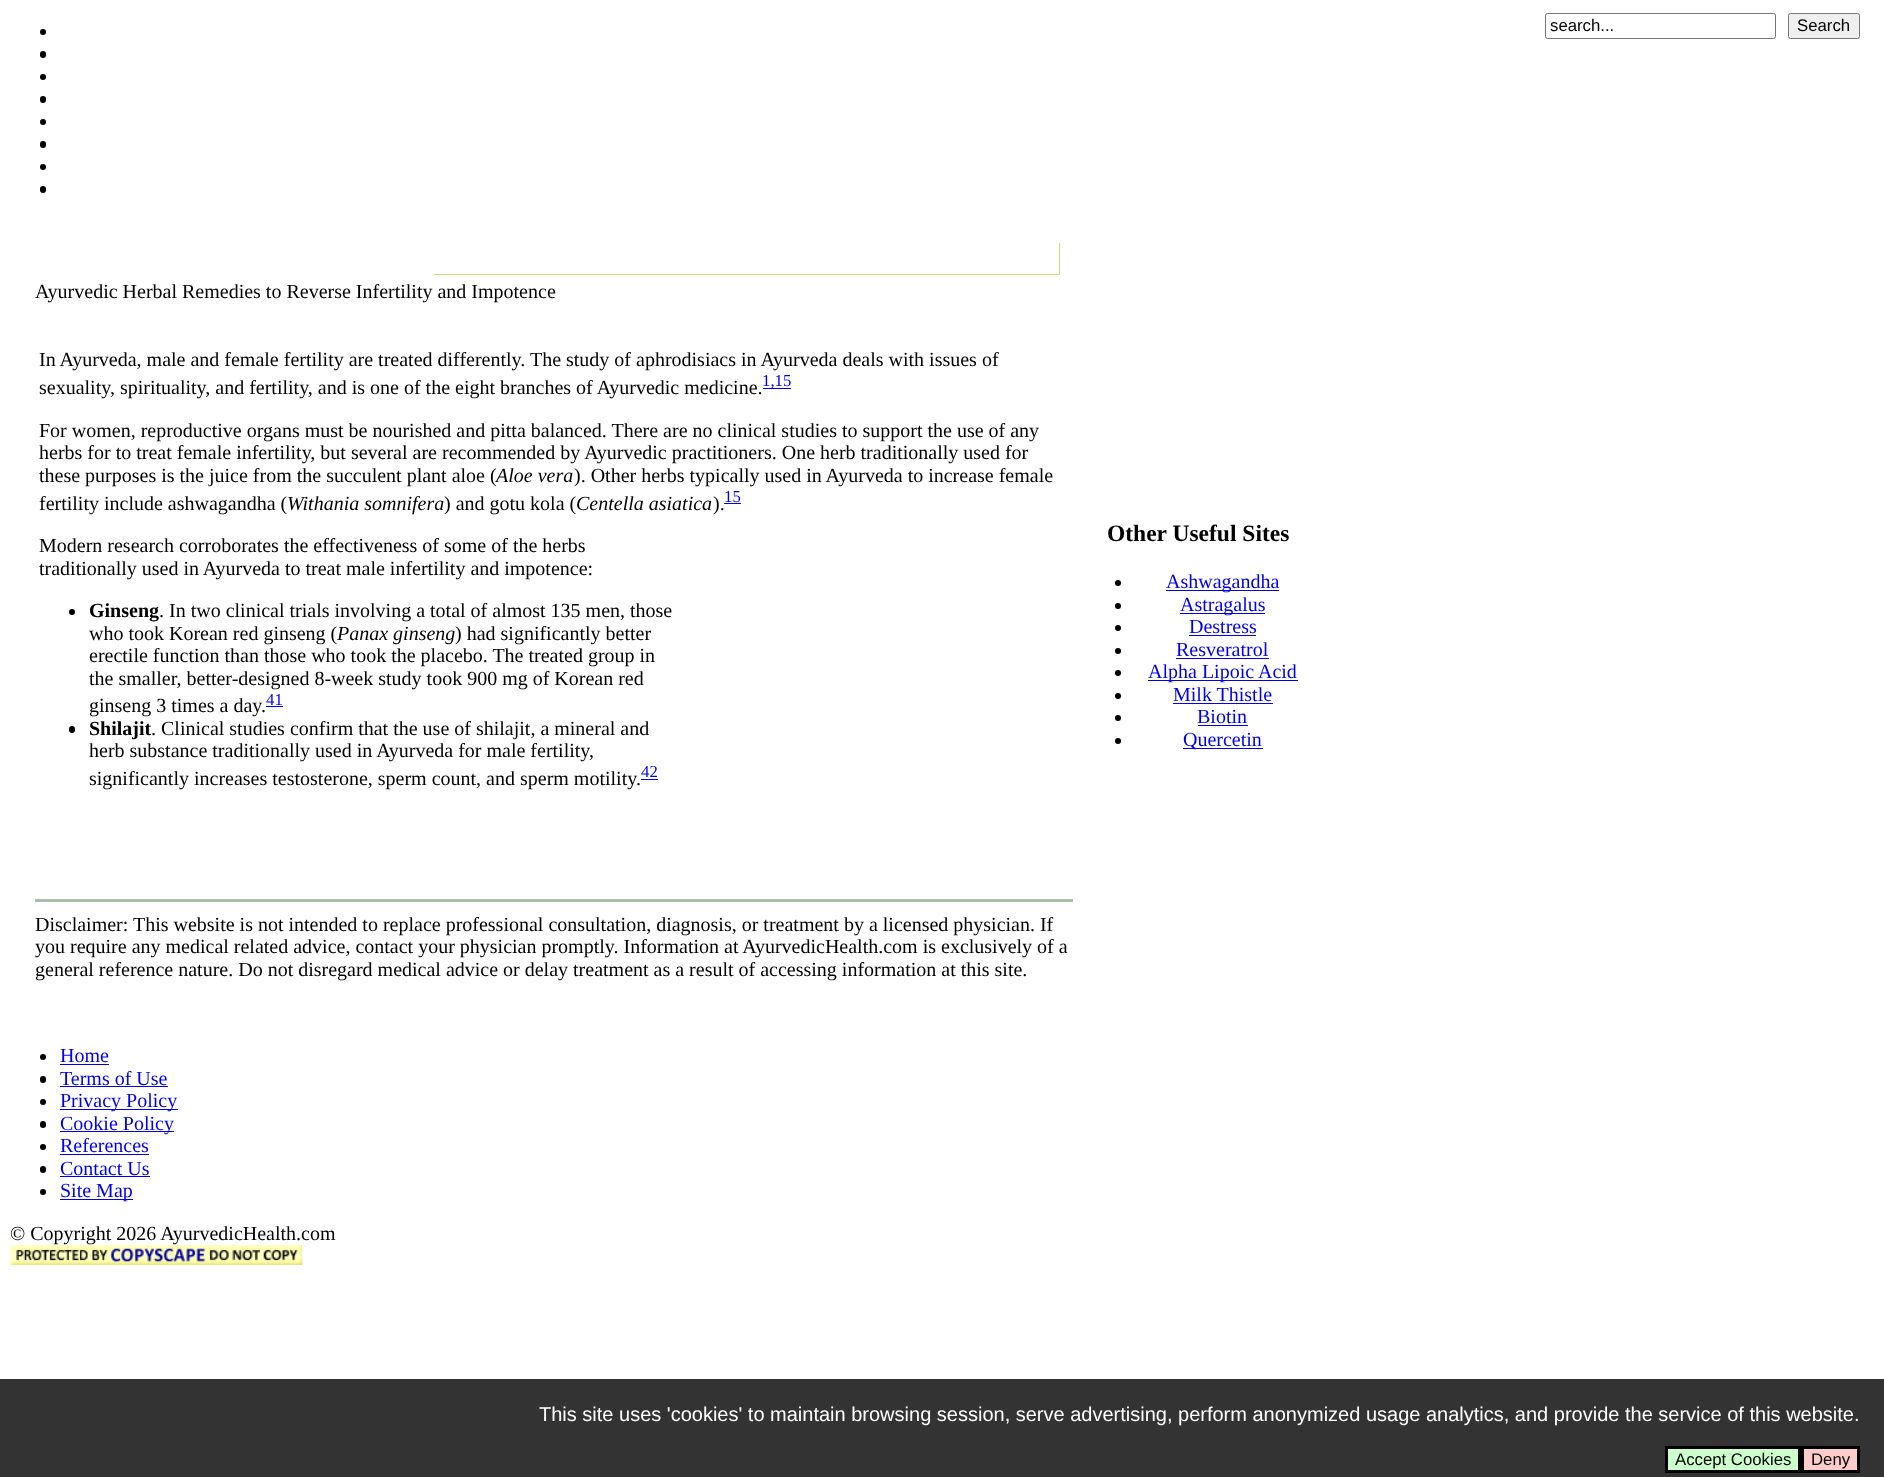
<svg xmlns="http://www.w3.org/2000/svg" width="1884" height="1477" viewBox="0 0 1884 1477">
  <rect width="100%" height="100%" fill="rgb(255,255,255)"/>
  <rect x="1545.5" y="13.5" width="230" height="25" rx="2" fill="none" stroke="rgb(118,118,118)"/>
  <text x="1550" y="31" font-family="Liberation Sans" font-size="16.75" fill="rgb(0,0,0)">search...</text>
  <rect x="1788.5" y="13.5" width="71" height="25" rx="2" fill="rgb(239,239,239)" stroke="rgb(118,118,118)"/>
  <text x="1797" y="31" font-family="Liberation Sans" font-size="16.75" fill="rgb(0,0,0)">Search</text>
  <circle cx="43" cy="32" r="3" fill="rgb(0,0,0)"/>
  <rect x="40" y="51" width="6" height="7" rx="3" fill="rgb(0,0,0)"/>
  <circle cx="43" cy="77" r="3" fill="rgb(0,0,0)"/>
  <rect x="40" y="96" width="6" height="7" rx="3" fill="rgb(0,0,0)"/>
  <circle cx="43" cy="122" r="3" fill="rgb(0,0,0)"/>
  <rect x="40" y="141" width="6" height="7" rx="3" fill="rgb(0,0,0)"/>
  <circle cx="43" cy="167" r="3" fill="rgb(0,0,0)"/>
  <rect x="40" y="186" width="6" height="7" rx="3" fill="rgb(0,0,0)"/>
  <rect x="1059" y="243" width="1" height="32" fill="rgb(204,221,119)"/>
  <rect x="434" y="274" width="626" height="1" fill="rgb(204,221,119)"/>
  <g font-family="Liberation Serif" font-size="20" fill="rgb(0,0,0)">
    <text x="35" y="298">Ayurvedic Herbal Remedies to Reverse Infertility and Impotence</text>
    <text>
      <tspan x="39" y="366">In Ayurveda, male and female fertility are treated differently. The study of aphrodisiacs in Ayurveda deals with issues of</tspan>
      <tspan x="39" y="394">sexuality, spirituality, and fertility, and is one of the eight branches of Ayurvedic medicine.</tspan>
    </text>
  </g>
  <rect x="763" y="388" width="28" height="1" fill="rgb(0,0,238)"/>
  <text x="762" y="386" font-family="Liberation Serif" font-size="16.75" fill="rgb(0,0,238)">1,15</text>
  <g font-family="Liberation Serif" font-size="20" fill="rgb(0,0,0)">
    <text>
      <tspan x="39" y="437">For women, reproductive organs must be nourished and pitta balanced. There are no clinical studies to support the use of any</tspan>
      <tspan x="39" y="459">herbs for to treat female infertility, but several are recommended by Ayurvedic practitioners. One herb traditionally used for</tspan>
      <tspan x="39" y="482">these purposes is the juice from the succulent plant aloe (</tspan>
    </text>
  </g>
  <text x="496" y="482" font-family="Liberation Serif" font-size="20" font-style="italic" fill="rgb(0,0,0)">Aloe vera</text>
  <g font-family="Liberation Serif" font-size="20" fill="rgb(0,0,0)">
    <text x="574" y="482">). Other herbs typically used in Ayurveda to increase female</text>
    <text x="39" y="510">fertility include ashwagandha (</text>
  </g>
  <text x="287" y="510" font-family="Liberation Serif" font-size="20" font-style="italic" fill="rgb(0,0,0)">Withania somnifera</text>
  <text x="444" y="510" font-family="Liberation Serif" font-size="20" fill="rgb(0,0,0)">) and gotu kola (</text>
  <text x="576" y="510" font-family="Liberation Serif" font-size="20" font-style="italic" fill="rgb(0,0,0)">Centella asiatica</text>
  <text x="713" y="510" font-family="Liberation Serif" font-size="20" fill="rgb(0,0,0)">).</text>
  <text x="724" y="502" font-family="Liberation Serif" font-size="16.75" fill="rgb(0,0,238)">15</text>
  <rect x="724" y="503" width="17" height="1" fill="rgb(0,0,238)"/>
  <g font-family="Liberation Serif" font-size="20" fill="rgb(0,0,0)">
    <text>
      <tspan x="39" y="552">Modern research corroborates the effectiveness of some of the herbs</tspan>
      <tspan x="39" y="575">traditionally used in Ayurveda to treat male infertility and impotence:</tspan>
    </text>
  </g>
  <circle cx="72" cy="612" r="3" fill="rgb(0,0,0)"/>
  <text x="89" y="617" font-family="Liberation Serif" font-size="20" font-weight="bold" fill="rgb(0,0,0)">Ginseng</text>
  <g font-family="Liberation Serif" font-size="20" fill="rgb(0,0,0)">
    <text x="159" y="617">. In two clinical trials involving a total of almost 135 men, those</text>
    <text x="89" y="640">who took Korean red ginseng (</text>
  </g>
  <text x="337" y="640" font-family="Liberation Serif" font-size="20" font-style="italic" fill="rgb(0,0,0)">Panax ginseng</text>
  <g font-family="Liberation Serif" font-size="20" fill="rgb(0,0,0)">
    <text x="455" y="640">) had significantly better</text>
    <text>
      <tspan x="89" y="662">erectile function than those who took the placebo. The treated group in</tspan>
      <tspan x="89" y="685">the smaller, better-designed 8-week study took 900 mg of Korean red</tspan>
      <tspan x="89" y="712">ginseng 3 times a day.</tspan>
    </text>
  </g>
  <text x="266" y="705" font-family="Liberation Serif" font-size="16.75" fill="rgb(0,0,238)">41</text>
  <rect x="266" y="706" width="17" height="1" fill="rgb(0,0,238)"/>
  <rect x="69" y="726" width="6" height="7" rx="3" fill="rgb(0,0,0)"/>
  <text x="89" y="735" font-family="Liberation Serif" font-size="20" font-weight="bold" fill="rgb(0,0,0)">Shilajit</text>
  <g font-family="Liberation Serif" font-size="20" fill="rgb(0,0,0)">
    <text x="151" y="735">. Clinical studies confirm that the use of shilajit, a mineral and</text>
    <text>
      <tspan x="89" y="757">herb substance traditionally used in Ayurveda for male fertility,</tspan>
      <tspan x="89" y="785">significantly increases testosterone, sperm count, and sperm motility.</tspan>
    </text>
  </g>
  <text x="641" y="777" font-family="Liberation Serif" font-size="16.75" fill="rgb(0,0,238)">42</text>
  <rect x="641" y="779" width="17" height="1" fill="rgb(0,0,238)"/>
  <rect x="35" y="899" width="1038" height="3" fill="rgb(170,187,170)"/>
  <g font-family="Liberation Serif" font-size="20" fill="rgb(0,0,0)">
    <text>
      <tspan x="35" y="931">Disclaimer: This website is not intended to replace professional consultation, diagnosis, or treatment by a licensed physician. If</tspan>
      <tspan x="35" y="953">you require any medical related advice, contact your physician promptly. Information at AyurvedicHealth.com is exclusively of a</tspan>
      <tspan x="35" y="976">general reference nature. Do not disregard medical advice or delay treatment as a result of accessing information at this site.</tspan>
    </text>
  </g>
  <text x="1107" y="541" font-family="Liberation Serif" font-size="23.5" font-weight="bold" fill="rgb(0,0,0)">Other Useful Sites</text>
  <circle cx="1118" cy="583" r="3" fill="rgb(0,0,0)"/>
  <rect x="1166" y="590" width="113" height="1" fill="rgb(0,0,238)"/>
  <text x="1166" y="588" font-family="Liberation Serif" font-size="20" fill="rgb(0,0,238)">Ashwagandha</text>
  <circle cx="1118" cy="606" r="3" fill="rgb(0,0,0)"/>
  <rect x="1180" y="613" width="85" height="1" fill="rgb(0,0,238)"/>
  <text x="1180" y="611" font-family="Liberation Serif" font-size="20" fill="rgb(0,0,238)">Astragalus</text>
  <circle cx="1118" cy="628" r="3" fill="rgb(0,0,0)"/>
  <text x="1189" y="633" font-family="Liberation Serif" font-size="20" fill="rgb(0,0,238)">Destress</text>
  <rect x="1189" y="635" width="67" height="1" fill="rgb(0,0,238)"/>
  <circle cx="1118" cy="651" r="3" fill="rgb(0,0,0)"/>
  <text x="1176" y="656" font-family="Liberation Serif" font-size="20" fill="rgb(0,0,238)">Resveratrol</text>
  <rect x="1176" y="658" width="93" height="1" fill="rgb(0,0,238)"/>
  <circle cx="1118" cy="673" r="3" fill="rgb(0,0,0)"/>
  <rect x="1148" y="680" width="150" height="1" fill="rgb(0,0,238)"/>
  <text x="1148" y="678" font-family="Liberation Serif" font-size="20" fill="rgb(0,0,238)">Alpha Lipoic Acid</text>
  <circle cx="1118" cy="696" r="3" fill="rgb(0,0,0)"/>
  <text x="1173" y="701" font-family="Liberation Serif" font-size="20" fill="rgb(0,0,238)">Milk Thistle</text>
  <rect x="1173" y="703" width="100" height="1" fill="rgb(0,0,238)"/>
  <circle cx="1118" cy="718" r="3" fill="rgb(0,0,0)"/>
  <text x="1197" y="723" font-family="Liberation Serif" font-size="20" fill="rgb(0,0,238)">Biotin</text>
  <rect x="1198" y="725" width="50" height="1" fill="rgb(0,0,238)"/>
  <circle cx="1118" cy="741" r="3" fill="rgb(0,0,0)"/>
  <rect x="1183" y="748" width="80" height="1" fill="rgb(0,0,238)"/>
  <text x="1183" y="746" font-family="Liberation Serif" font-size="20" fill="rgb(0,0,238)">Quercetin</text>
  <circle cx="43" cy="1057" r="3" fill="rgb(0,0,0)"/>
  <text x="60" y="1062" font-family="Liberation Serif" font-size="20" fill="rgb(0,0,238)">Home</text>
  <rect x="60" y="1064" width="49" height="1" fill="rgb(0,0,238)"/>
  <rect x="40" y="1076" width="6" height="7" rx="3" fill="rgb(0,0,0)"/>
  <text x="60" y="1085" font-family="Liberation Serif" font-size="20" fill="rgb(0,0,238)">Terms of Use</text>
  <rect x="60" y="1086" width="108" height="1" fill="rgb(0,0,238)"/>
  <circle cx="43" cy="1102" r="3" fill="rgb(0,0,0)"/>
  <rect x="60" y="1109" width="118" height="1" fill="rgb(0,0,238)"/>
  <text x="60" y="1107" font-family="Liberation Serif" font-size="20" fill="rgb(0,0,238)">Privacy Policy</text>
  <rect x="40" y="1121" width="6" height="7" rx="3" fill="rgb(0,0,0)"/>
  <rect x="60" y="1131" width="114" height="1" fill="rgb(0,0,238)"/>
  <text x="60" y="1130" font-family="Liberation Serif" font-size="20" fill="rgb(0,0,238)">Cookie Policy</text>
  <circle cx="43" cy="1147" r="3" fill="rgb(0,0,0)"/>
  <text x="60" y="1152" font-family="Liberation Serif" font-size="20" fill="rgb(0,0,238)">References</text>
  <rect x="60" y="1154" width="89" height="1" fill="rgb(0,0,238)"/>
  <rect x="40" y="1166" width="6" height="7" rx="3" fill="rgb(0,0,0)"/>
  <text x="60" y="1175" font-family="Liberation Serif" font-size="20" fill="rgb(0,0,238)">Contact Us</text>
  <rect x="60" y="1176" width="90" height="1" fill="rgb(0,0,238)"/>
  <circle cx="43" cy="1192" r="3" fill="rgb(0,0,0)"/>
  <rect x="60" y="1199" width="73" height="1" fill="rgb(0,0,238)"/>
  <text x="60" y="1197" font-family="Liberation Serif" font-size="20" fill="rgb(0,0,238)">Site Map</text>
  <text x="10" y="1240" font-family="Liberation Serif" font-size="20" fill="rgb(0,0,0)">© Copyright 2026 AyurvedicHealth.com</text>
  <image x="10" y="1245" width="293" height="20" href="pic1.png"/>
  <rect x="0" y="1379" width="1884" height="98" fill="rgb(51,51,51)"/>
  <text x="539" y="1421" font-family="Liberation Sans" font-size="20" fill="rgb(255,255,255)">This site uses 'cookies' to maintain browsing session, serve advertising, perform anonymized usage analytics, and provide the service of this website.</text>
  <rect x="1666.5" y="1447.5" width="133" height="24" fill="rgb(204,255,204)" stroke="rgb(0,0,0)" stroke-width="3"/>
  <text x="1675" y="1465" font-family="Liberation Sans" font-size="16.75" fill="rgb(0,0,0)">Accept Cookies</text>
  <rect x="1802.5" y="1447.5" width="56" height="24" fill="rgb(255,204,204)" stroke="rgb(0,0,0)" stroke-width="3"/>
  <text x="1811" y="1465" font-family="Liberation Sans" font-size="16.75" fill="rgb(0,0,0)">Deny</text>
</svg>
